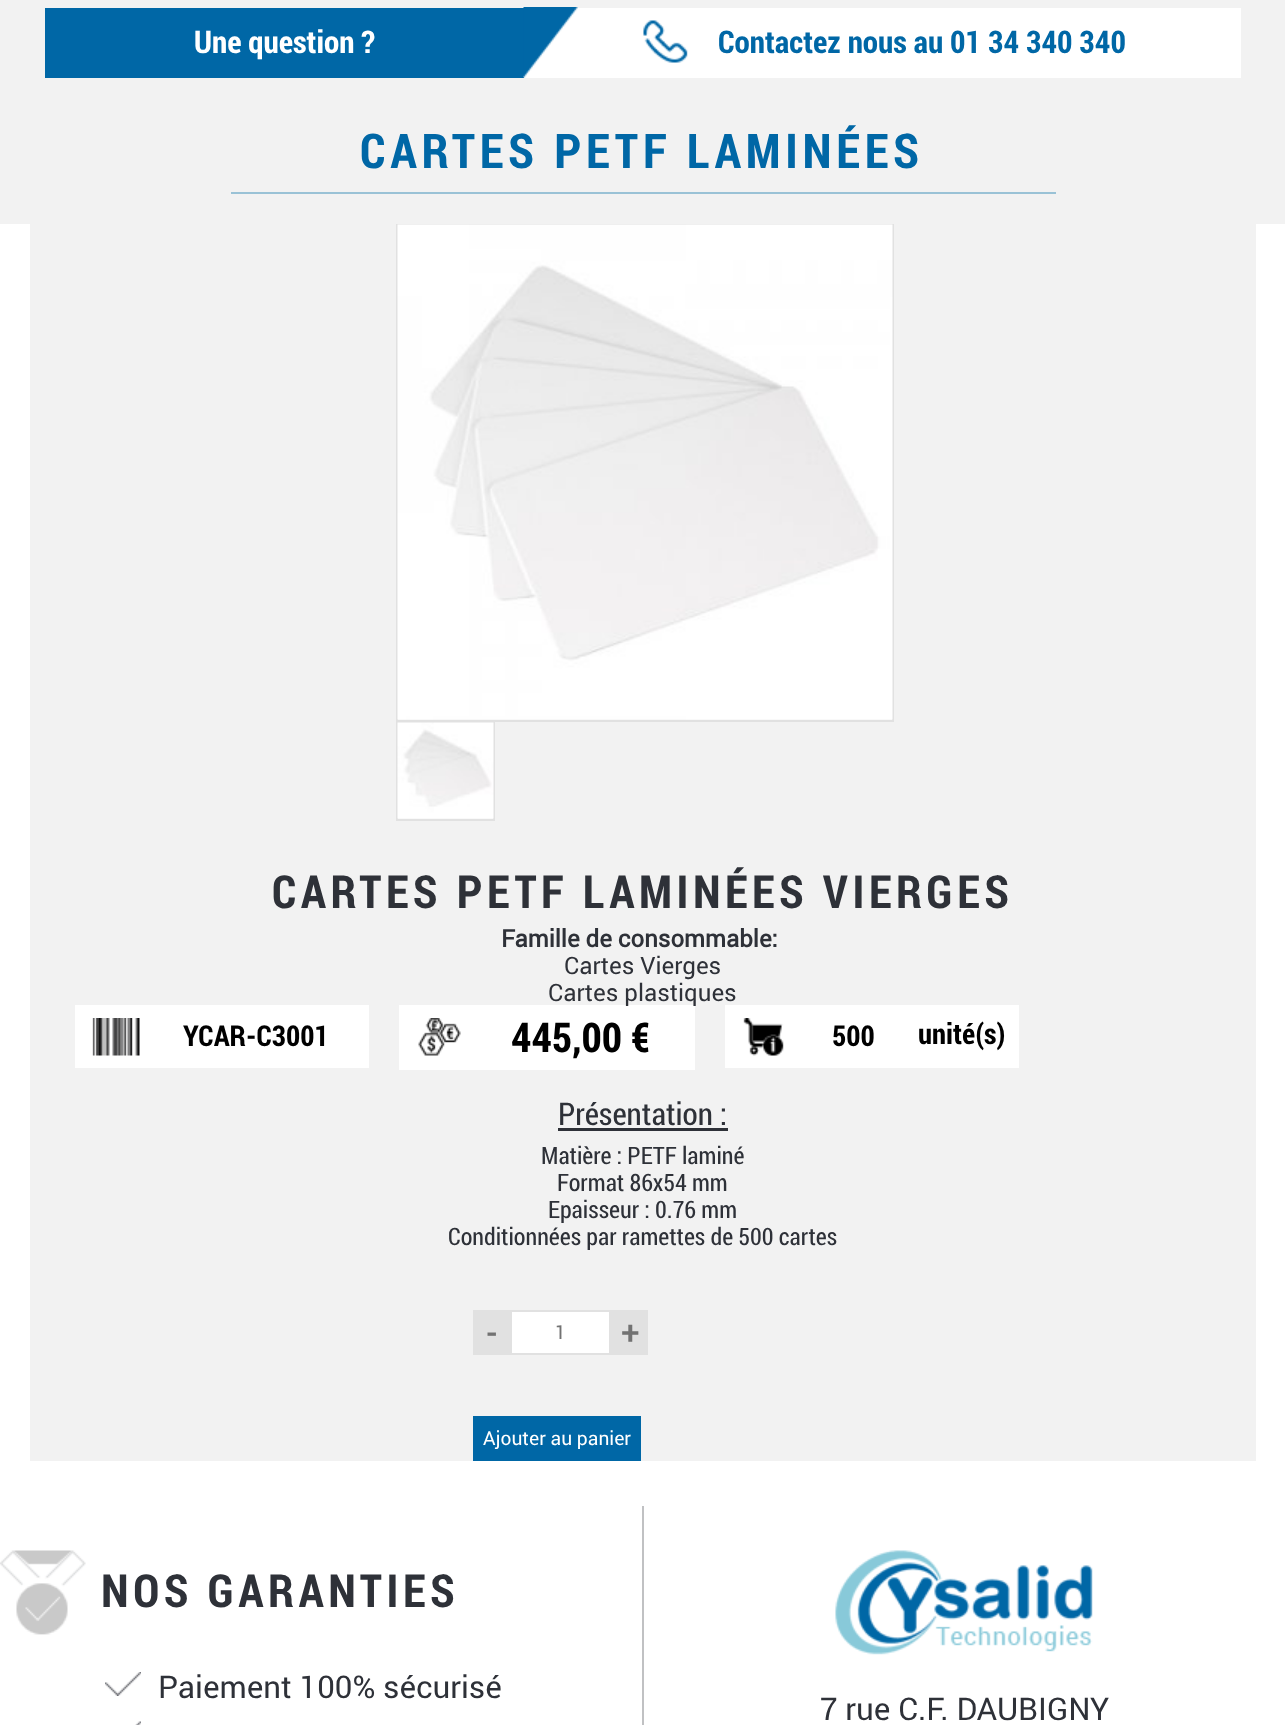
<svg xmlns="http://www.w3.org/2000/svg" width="1285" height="1725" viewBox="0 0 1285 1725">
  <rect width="100%" height="100%" fill="rgb(255,255,255)"/>
  <rect x="0" y="0" width="1285" height="224" fill="rgb(242,242,242)"/>
  <rect x="45" y="8" width="479" height="70" fill="rgb(0,103,166)"/>
  <text x="194" y="53" font-family="Roboto Condensed" font-size="31.25" font-weight="bold" fill="rgb(255,255,255)">Une question ?</text>
  <rect x="524" y="8" width="717" height="70" fill="rgb(255,255,255)"/>
  <image x="523" y="7" width="55" height="71" href="pic1.png"/>
  <image x="643" y="20" width="45" height="43" href="pic2.png"/>
  <text x="718" y="53" font-family="Roboto Condensed" font-size="31.25" font-weight="bold" fill="rgb(0,103,166)">Contactez nous au 01 34 340 340</text>
  <text x="360" y="168" font-family="Roboto Condensed" font-size="48" font-weight="bold" letter-spacing="4.75" fill="rgb(0,103,166)">CARTES PETF LAMINÉES</text>
  <rect x="231" y="192" width="825" height="2" fill="rgb(154,194,214)"/>
  <rect x="30" y="224" width="1226" height="1237" fill="rgb(242,242,242)"/>
  <rect x="397" y="225" width="496" height="496" fill="none" stroke="rgb(225,225,225)" stroke-width="2"/>
  <image x="397" y="224" width="496" height="496" href="pic3.png"/>
  <rect x="397" y="723" width="97" height="97" fill="none" stroke="rgb(225,225,225)" stroke-width="2"/>
  <image x="397" y="722" width="97" height="97" href="pic4.png"/>
  <text x="272" y="908" font-family="Roboto Condensed" font-size="45.6" font-weight="bold" letter-spacing="4.55" fill="rgb(46,49,56)">CARTES PETF LAMINÉES VIERGES</text>
  <text x="501" y="947" font-family="Roboto" font-size="24" font-weight="bold" fill="rgb(46,49,56)">Famille de consommable:</text>
  <text x="564" y="974" font-family="Roboto" font-size="24" fill="rgb(46,49,56)">Cartes Vierges</text>
  <rect x="399" y="1005" width="296" height="65" fill="rgb(255,255,255)"/>
  <rect x="725" y="1005" width="294" height="63" fill="rgb(255,255,255)"/>
  <text x="548" y="1001" font-family="Roboto" font-size="24" fill="rgb(46,49,56)">Cartes plastiques</text>
  <rect x="75" y="1005" width="294" height="63" fill="rgb(255,255,255)"/>
  <image x="92" y="1018" width="48" height="38" href="pic5.png"/>
  <text x="183" y="1046" font-family="Roboto Condensed" font-size="28.75" font-weight="bold" fill="rgb(0,0,0)">YCAR-C3001</text>
  <image x="418" y="1018" width="43" height="38" href="pic6.png"/>
  <text x="511" y="1052" font-family="Roboto Condensed" font-size="41" font-weight="bold" fill="rgb(0,0,0)">445,00 €</text>
  <image x="743" y="1018" width="41" height="38" href="pic7.png"/>
  <g font-family="Roboto Condensed" font-size="28.75" font-weight="bold" fill="rgb(0,0,0)">
    <text x="832" y="1046">500</text>
    <text x="918" y="1044">unité(s)</text>
  </g>
  <text x="558" y="1125" font-family="Roboto Condensed" font-size="31.25" fill="rgb(46,49,56)">Présentation :</text>
  <rect x="558" y="1128" width="170" height="3" fill="rgb(46,49,56)"/>
  <g font-family="Roboto Condensed" font-size="24" fill="rgb(46,49,56)">
    <text x="541" y="1164">Matière : PETF laminé</text>
    <text x="557" y="1191">Format 86x54 mm</text>
    <text x="548" y="1218">Epaisseur : 0.76 mm</text>
    <text x="448" y="1245">Conditionnées par ramettes de 500 cartes</text>
  </g>
  <rect x="473" y="1310" width="37" height="45" fill="rgb(225,225,225)"/>
  <text x="487" y="1344" font-family="Roboto" font-size="31.25" font-weight="bold" fill="rgb(114,114,114)">-</text>
  <rect x="511" y="1311" width="99" height="43" fill="rgb(255,255,255)" stroke="rgb(225,225,225)" stroke-width="2"/>
  <text x="555" y="1339" font-family="Roboto" font-size="19.25" fill="rgb(114,114,114)">1</text>
  <rect x="611" y="1310" width="37" height="45" fill="rgb(225,225,225)"/>
  <text x="621" y="1344" font-family="Roboto" font-size="31.25" font-weight="bold" fill="rgb(114,114,114)">+</text>
  <rect x="473" y="1416" width="168" height="45" fill="rgb(0,103,166)"/>
  <text x="483" y="1445" font-family="Roboto" font-size="19.25" fill="rgb(255,255,255)">Ajouter au panier</text>
  <rect x="642" y="1506" width="2" height="219" fill="rgb(192,193,195)"/>
  <image x="0" y="1550" width="86" height="85" href="pic8.png"/>
  <text x="101" y="1607" font-family="Roboto Condensed" font-size="45.6" font-weight="bold" letter-spacing="4.55" fill="rgb(46,49,56)">NOS GARANTIES</text>
  <image x="105" y="1672" width="36" height="24" href="pic9.png"/>
  <text x="158" y="1698" font-family="Roboto" font-size="31.25" fill="rgb(46,49,56)">Paiement 100% sécurisé</text>
  <image x="135" y="1721" width="6" height="4" href="pic10.png"/>
  <image x="835" y="1550" width="258" height="105" href="pic11.png"/>
  <text x="820" y="1720" font-family="Roboto" font-size="31.25" fill="rgb(46,49,56)">7 rue C.F. DAUBIGNY</text>
</svg>
